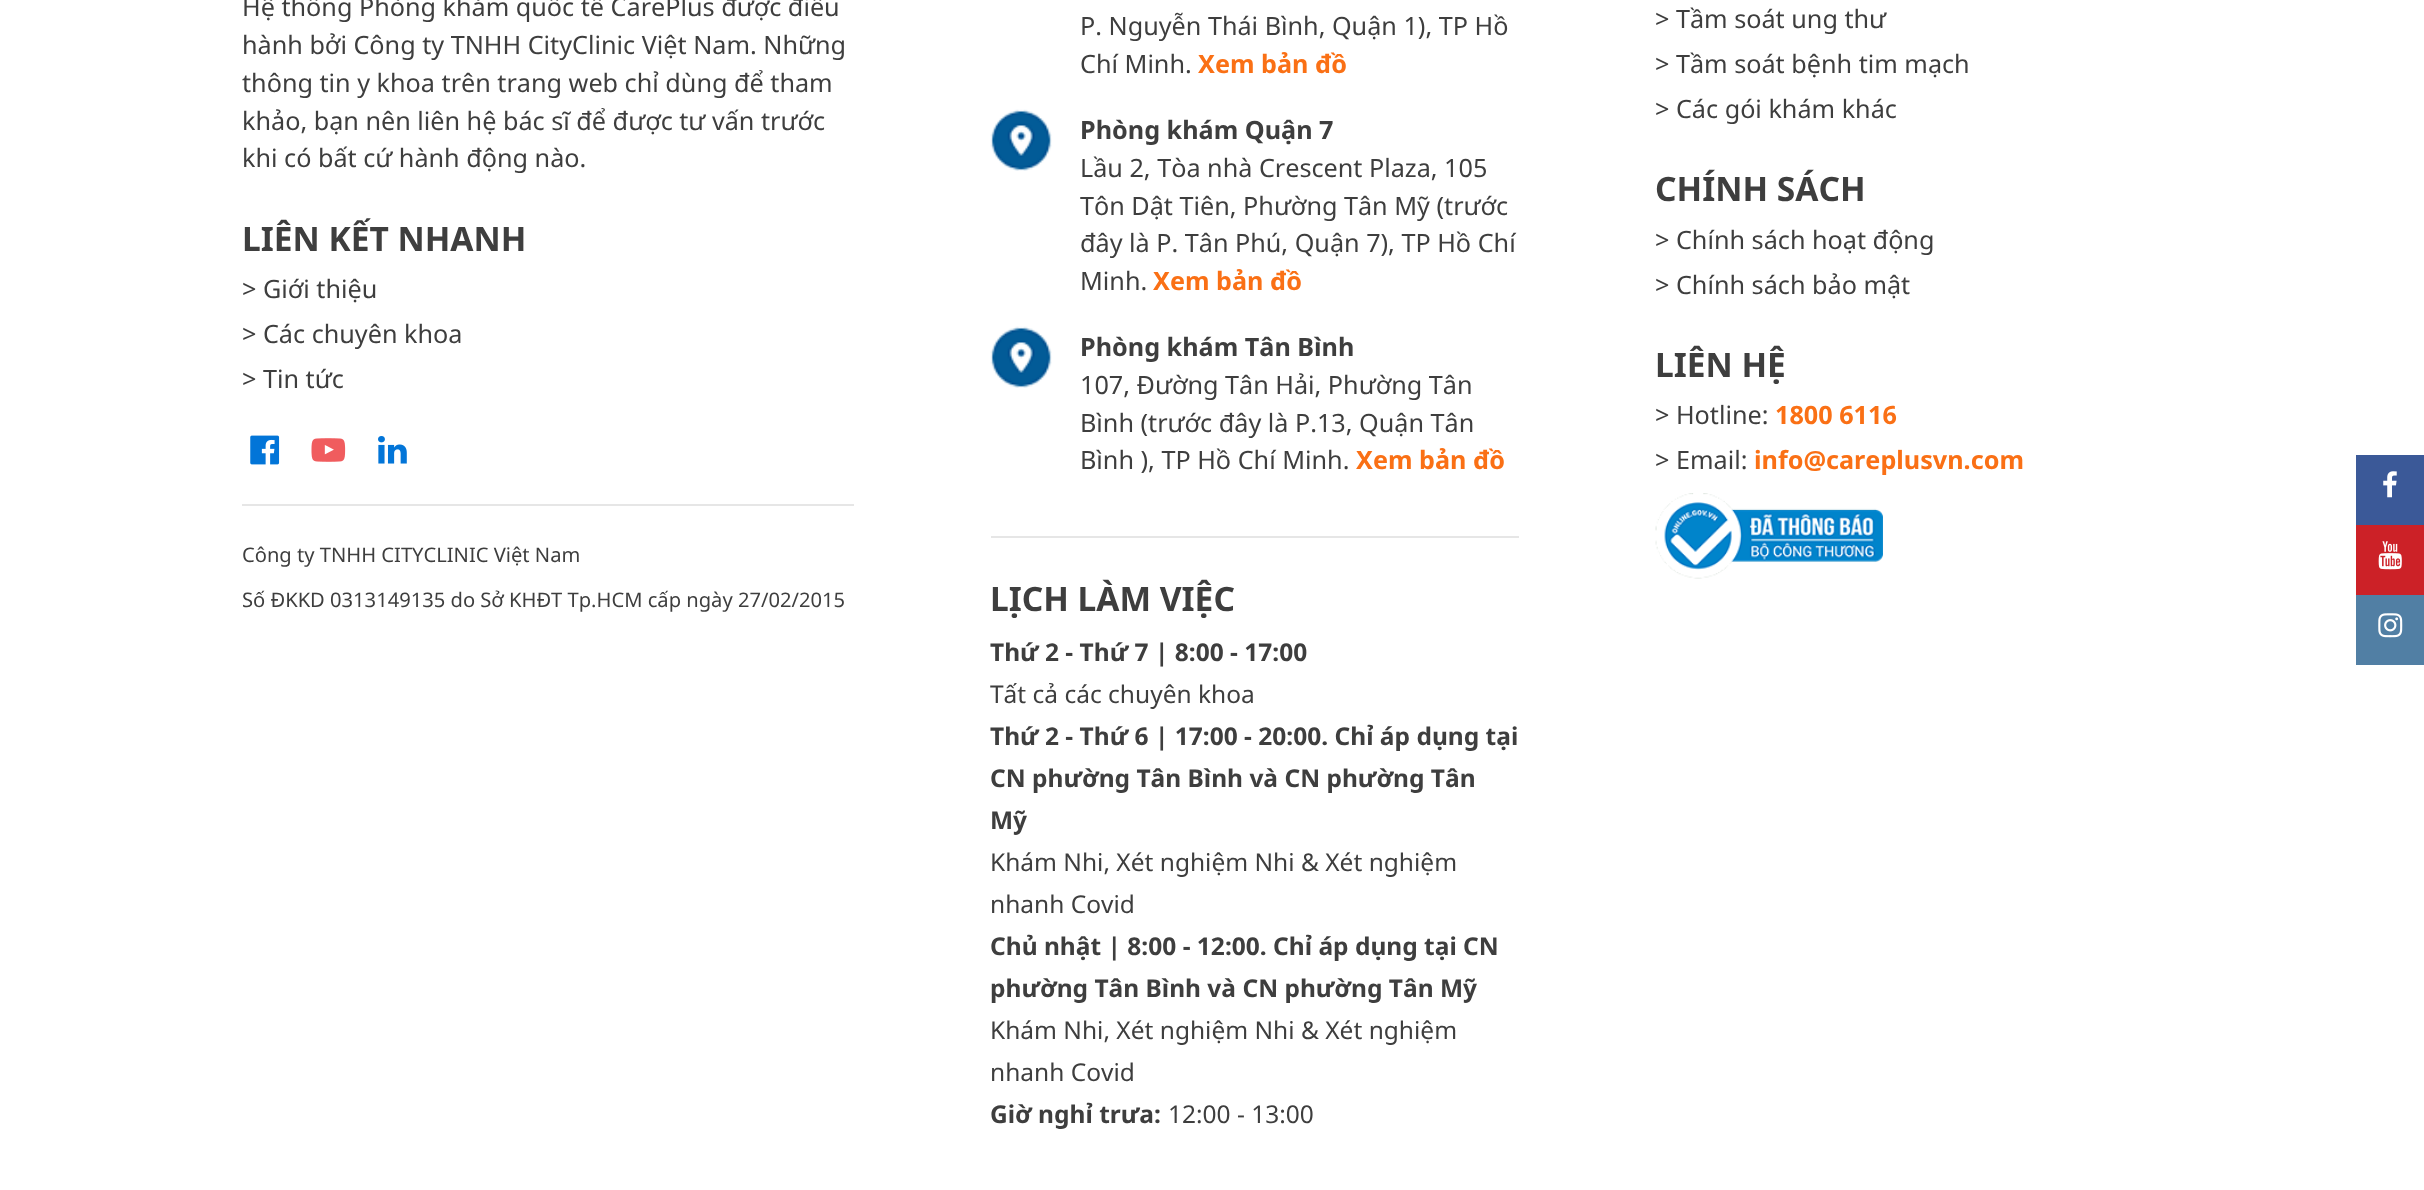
<svg xmlns="http://www.w3.org/2000/svg" width="2424" height="1190" viewBox="0 0 2424 1190">
  <style>*{font-kerning:none!important;font-variant-ligatures:none!important}</style>
  <rect width="100%" height="100%" fill="rgb(255,255,255)"/>
  <g font-family="Noto Sans" font-size="25.2" fill="rgb(62,62,62)">
    <text>
      <tspan x="242" y="16">Hệ thống Phòng khám quốc tế CarePlus được điều</tspan>
      <tspan x="242" y="54">hành bởi Công ty TNHH CityClinic Việt Nam. Những</tspan>
      <tspan x="242" y="92">thông tin y khoa trên trang web chỉ dùng để tham</tspan>
      <tspan x="242" y="130">khảo, bạn nên liên hệ bác sĩ để được tư vấn trước</tspan>
      <tspan x="242" y="167">khi có bất cứ hành động nào.</tspan>
    </text>
  </g>
  <text x="242" y="251" font-family="Noto Sans" font-size="33.5" font-weight="bold" fill="rgb(62,62,62)">LIÊN KẾT NHANH</text>
  <g font-family="Noto Sans" font-size="25.2" fill="rgb(62,62,62)">
    <text>
      <tspan x="242" y="298">&gt; Giới thiệu</tspan>
      <tspan x="242" y="343">&gt; Các chuyên khoa</tspan>
      <tspan x="242" y="388">&gt; Tin tức</tspan>
    </text>
  </g>
  <image x="250" y="435" width="30" height="30" href="pic1.png"/>
  <image x="311" y="438" width="35" height="24" href="pic2.png"/>
  <image x="378" y="436" width="29" height="28" href="pic3.png"/>
  <rect x="242" y="504" width="612" height="2" fill="rgb(230,230,230)"/>
  <g font-family="Noto Sans" font-size="20.15" fill="rgb(62,62,62)">
    <text x="242" y="562">Công ty TNHH CITYCLINIC Việt Nam</text>
    <text x="242" y="607">Số ĐKKD 0313149135 do Sở KHĐT Tp.HCM cấp ngày 27/02/2015</text>
  </g>
  <g font-family="Noto Sans" font-size="25.2" fill="rgb(62,62,62)">
    <text>
      <tspan x="1080" y="35">P. Nguyễn Thái Bình, Quận 1), TP Hồ</tspan>
      <tspan x="1080" y="73">Chí Minh.</tspan>
    </text>
  </g>
  <text x="1198" y="73" font-family="Noto Sans" font-size="25.2" font-weight="bold" fill="rgb(250,112,21)">Xem bản đồ</text>
  <image x="990" y="109" width="62" height="62" href="pic4.png"/>
  <text x="1080" y="139" font-family="Noto Sans" font-size="25.2" font-weight="bold" fill="rgb(62,62,62)">Phòng khám Quận 7</text>
  <g font-family="Noto Sans" font-size="25.2" fill="rgb(62,62,62)">
    <text>
      <tspan x="1080" y="177">Lầu 2, Tòa nhà Crescent Plaza, 105</tspan>
      <tspan x="1080" y="215">Tôn Dật Tiên, Phường Tân Mỹ (trước</tspan>
      <tspan x="1080" y="252">đây là P. Tân</tspan>
    </text>
    <text x="1235" y="252">Phú, Quận 7), TP Hồ Chí</text>
    <text x="1080" y="290">Minh.</text>
  </g>
  <text x="1153" y="290" font-family="Noto Sans" font-size="25.2" font-weight="bold" fill="rgb(250,112,21)">Xem bản đồ</text>
  <image x="990" y="326" width="62" height="62" href="pic4.png"/>
  <text x="1080" y="356" font-family="Noto Sans" font-size="25.2" font-weight="bold" fill="rgb(62,62,62)">Phòng khám Tân Bình</text>
  <g font-family="Noto Sans" font-size="25.2" fill="rgb(62,62,62)">
    <text>
      <tspan x="1080" y="394">107, Đường Tân Hải, Phường Tân</tspan>
      <tspan x="1080" y="432">Bình (trước đây là P.13, Quận Tân</tspan>
      <tspan x="1080" y="469">Bình ), TP Hồ Chí Minh.</tspan>
    </text>
  </g>
  <text x="1356" y="469" font-family="Noto Sans" font-size="25.2" font-weight="bold" fill="rgb(250,112,21)">Xem bản đồ</text>
  <rect x="991" y="536" width="528" height="2" fill="rgb(230,230,230)"/>
  <text x="990" y="611" font-family="Noto Sans" font-size="33.5" font-weight="bold" fill="rgb(62,62,62)">LỊCH LÀM VIỆC</text>
  <text x="990" y="661" font-family="Noto Sans" font-size="24.5" font-weight="bold" fill="rgb(62,62,62)">Thứ 2 - Thứ 7 | 8:00 - 17:00</text>
  <text x="990" y="703" font-family="Noto Sans" font-size="24.5" fill="rgb(62,62,62)">Tất cả các chuyên khoa</text>
  <g font-family="Noto Sans" font-size="24.5" font-weight="bold" fill="rgb(62,62,62)">
    <text>
      <tspan x="990" y="745">Thứ 2 - Thứ 6 | 17:00 - 20:00. Chỉ áp dụng tại</tspan>
      <tspan x="990" y="787">CN phường Tân Bình và CN phường Tân</tspan>
      <tspan x="990" y="829">Mỹ</tspan>
    </text>
  </g>
  <g font-family="Noto Sans" font-size="24.5" fill="rgb(62,62,62)">
    <text>
      <tspan x="990" y="871">Khám Nhi, Xét nghiệm Nhi &amp; Xét nghiệm</tspan>
      <tspan x="990" y="913">nhanh Covid</tspan>
    </text>
  </g>
  <g font-family="Noto Sans" font-size="24.5" font-weight="bold" fill="rgb(62,62,62)">
    <text>
      <tspan x="990" y="955">Chủ nhật | 8:00 - 12:00. Chỉ áp dụng tại CN</tspan>
      <tspan x="990" y="997">phường Tân Bình và CN phường Tân Mỹ</tspan>
    </text>
  </g>
  <g font-family="Noto Sans" font-size="24.5" fill="rgb(62,62,62)">
    <text>
      <tspan x="990" y="1039">Khám Nhi, Xét nghiệm Nhi &amp; Xét nghiệm</tspan>
      <tspan x="990" y="1081">nhanh Covid</tspan>
    </text>
  </g>
  <text x="990" y="1123" font-family="Noto Sans" font-size="24.5" font-weight="bold" fill="rgb(62,62,62)">Giờ nghỉ trưa:</text>
  <text x="1168" y="1123" font-family="Noto Sans" font-size="24.5" fill="rgb(62,62,62)">12:00 - 13:00</text>
  <g font-family="Noto Sans" font-size="25.2" fill="rgb(62,62,62)">
    <text>
      <tspan x="1655" y="28">&gt; Tầm soát ung thư</tspan>
      <tspan x="1655" y="73">&gt; Tầm soát bệnh tim mạch</tspan>
      <tspan x="1655" y="118">&gt; Các gói khám khác</tspan>
    </text>
  </g>
  <text x="1655" y="201" font-family="Noto Sans" font-size="33.5" font-weight="bold" fill="rgb(62,62,62)">CHÍNH SÁCH</text>
  <g font-family="Noto Sans" font-size="25.2" fill="rgb(62,62,62)">
    <text>
      <tspan x="1655" y="249">&gt; Chính sách hoạt động</tspan>
      <tspan x="1655" y="294">&gt; Chính sách bảo mật</tspan>
    </text>
  </g>
  <text x="1655" y="377" font-family="Noto Sans" font-size="33.5" font-weight="bold" fill="rgb(62,62,62)">LIÊN HỆ</text>
  <text x="1655" y="424" font-family="Noto Sans" font-size="25.2" fill="rgb(62,62,62)">&gt; Hotline:</text>
  <text x="1775" y="424" font-family="Noto Sans" font-size="25.2" font-weight="bold" fill="rgb(250,112,21)">1800 6116</text>
  <text x="1655" y="469" font-family="Noto Sans" font-size="25.2" fill="rgb(62,62,62)">&gt; Email:</text>
  <text x="1754" y="469" font-family="Noto Sans" font-size="25.2" font-weight="bold" fill="rgb(250,112,21)">info@careplusvn.com</text>
  <image x="1655" y="493" width="228" height="86" href="pic5.png"/>
  <rect x="2356" y="455" width="68" height="70" fill="rgb(59,89,152)"/>
  <image x="2383" y="471" width="14" height="27" href="pic6.png"/>
  <rect x="2356" y="525" width="68" height="70" fill="rgb(204,33,39)"/>
  <image x="2378" y="541" width="24" height="29" href="pic7.png"/>
  <rect x="2356" y="595" width="68" height="70" fill="rgb(81,127,164)"/>
  <image x="2378" y="613" width="25" height="25" href="pic8.png"/>
</svg>
